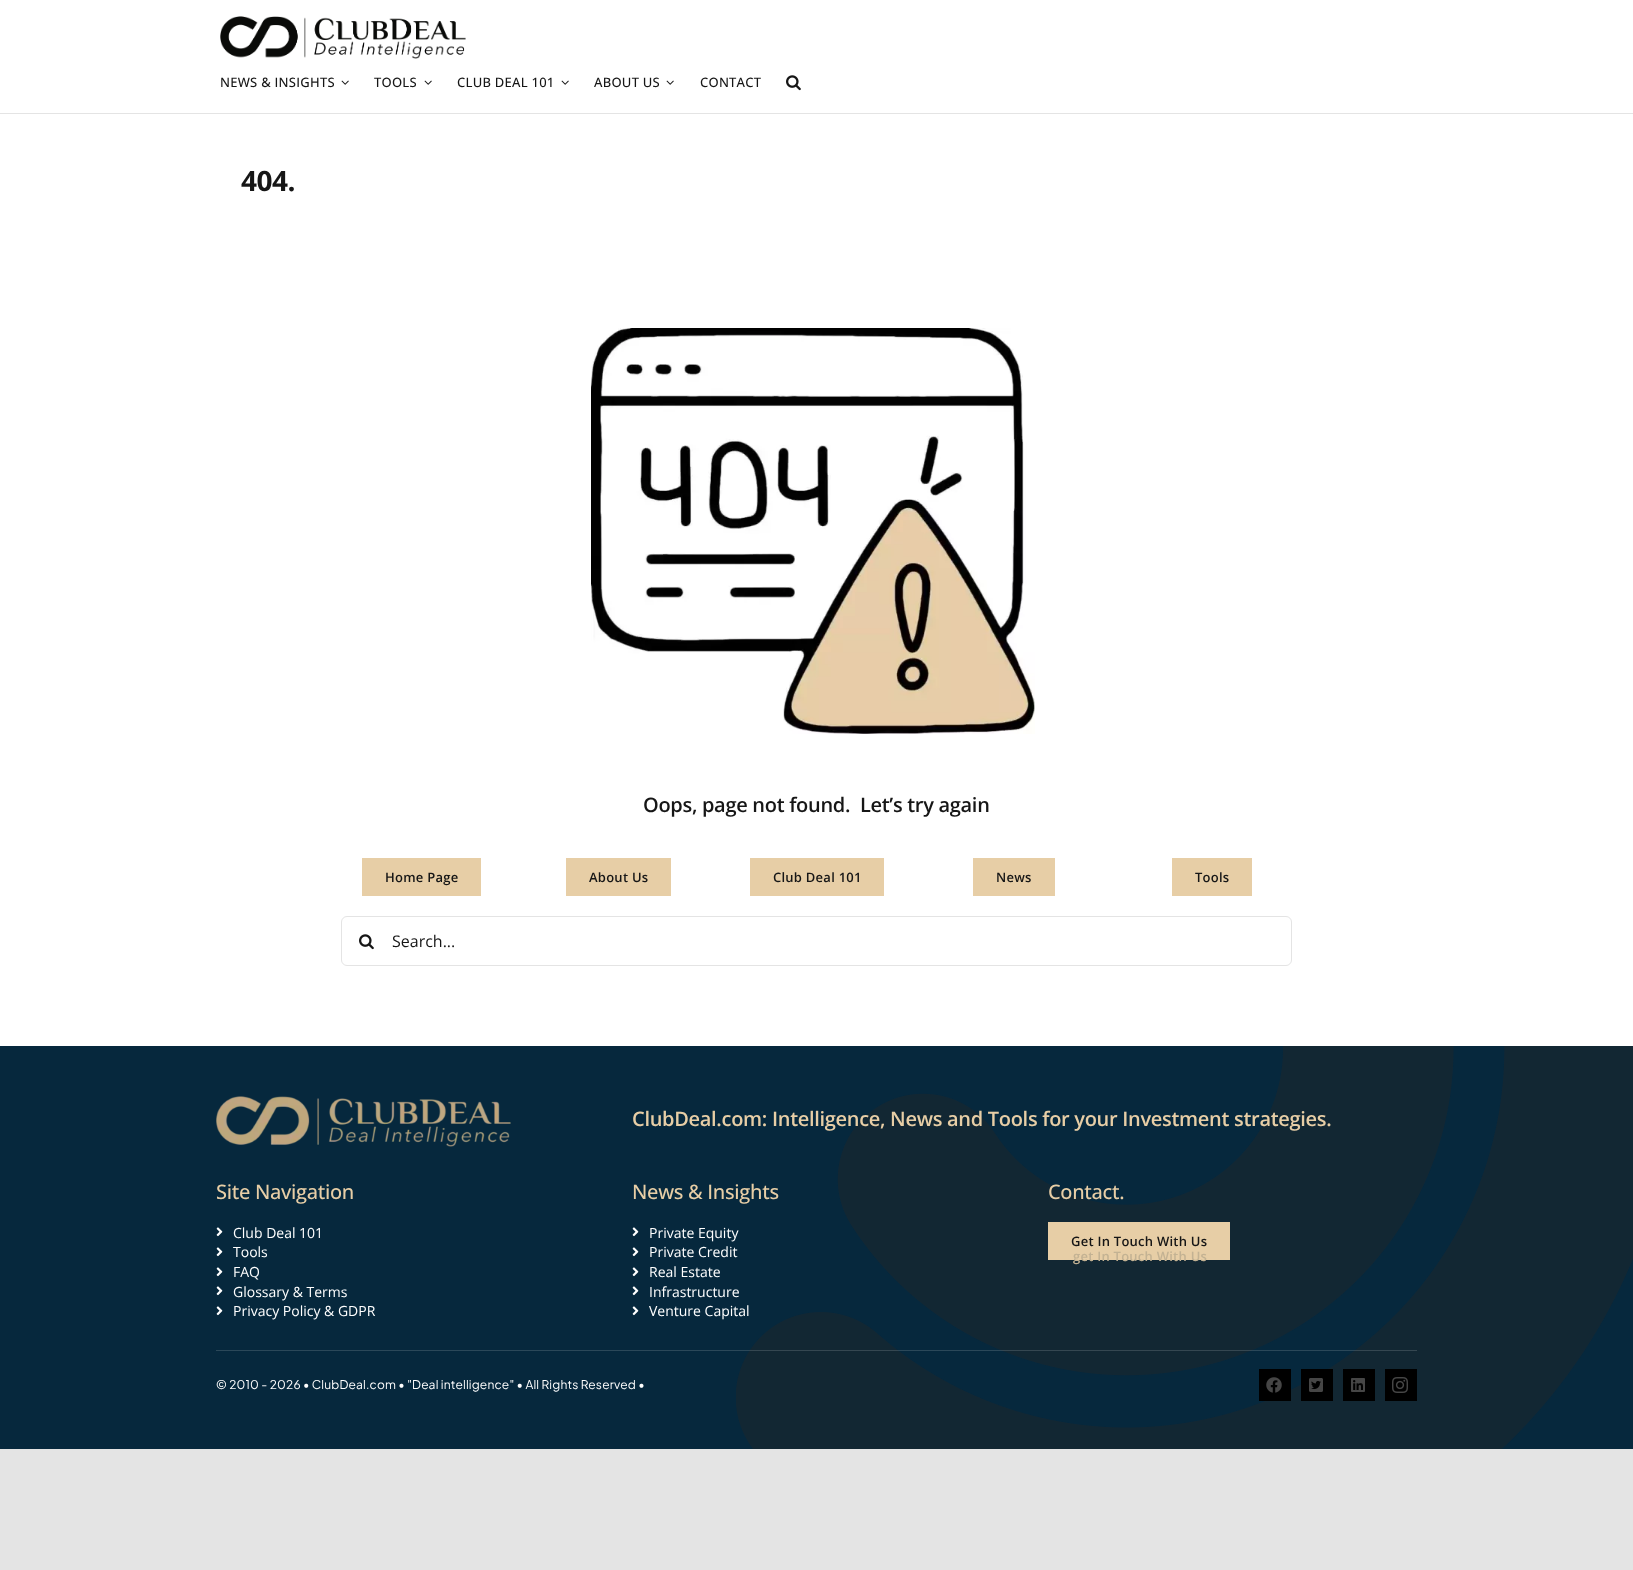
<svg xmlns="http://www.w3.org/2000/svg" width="1633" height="1570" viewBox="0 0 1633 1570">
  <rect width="100%" height="100%" fill="rgb(228,228,228)"/>
  <rect x="0" y="0" width="1633" height="1046" fill="rgb(255,255,255)"/>
  <rect x="0" y="113" width="1633" height="1" fill="rgb(228,228,228)"/>
  <image x="220" y="16" width="246" height="43" href="pic1.png"/>
  <text x="220" y="87" font-family="Open Sans" font-size="13" font-weight="500" letter-spacing="0.25" fill="rgb(22,22,22)">NEWS &amp; INSIGHTS</text>
  <image x="341" y="80" width="8" height="5" href="pic2.png"/>
  <text x="374" y="87" font-family="Open Sans" font-size="13" font-weight="500" letter-spacing="0.25" fill="rgb(22,22,22)">TOOLS</text>
  <image x="424" y="80" width="8" height="5" href="pic2.png"/>
  <text x="457" y="87" font-family="Open Sans" font-size="13" font-weight="500" letter-spacing="0.25" fill="rgb(22,22,22)">CLUB DEAL 101</text>
  <image x="561" y="80" width="8" height="5" href="pic2.png"/>
  <text x="594" y="87" font-family="Open Sans" font-size="13" font-weight="500" letter-spacing="0.25" fill="rgb(22,22,22)">ABOUT US</text>
  <image x="666" y="80" width="8" height="5" href="pic2.png"/>
  <text x="700" y="87" font-family="Open Sans" font-size="13" font-weight="500" letter-spacing="0.25" fill="rgb(22,22,22)">CONTACT</text>
  <image x="786" y="75" width="15" height="16" href="pic3.png"/>
  <text x="241" y="191" font-family="Open Sans" font-size="28" font-weight="bold" letter-spacing="-0.5" fill="rgb(22,22,22)">404.</text>
  <image x="591" y="328" width="444" height="406" href="pic4.png"/>
  <text x="643" y="812" font-family="Open Sans" font-size="20" font-weight="600" letter-spacing="-0.3" fill="rgb(22,22,22)" xml:space="preserve">Oops, page not found.  Let’s try again</text>
  <rect x="362" y="858" width="119" height="38" fill="rgb(231,206,166)"/>
  <text x="385" y="882" font-family="Open Sans" font-size="13" font-weight="600" letter-spacing="0.25" fill="rgb(22,22,22)">Home Page</text>
  <rect x="566" y="858" width="105" height="38" fill="rgb(231,206,166)"/>
  <text x="589" y="882" font-family="Open Sans" font-size="13" font-weight="600" letter-spacing="0.25" fill="rgb(22,22,22)">About Us</text>
  <rect x="750" y="858" width="134" height="38" fill="rgb(231,206,166)"/>
  <text x="773" y="882" font-family="Open Sans" font-size="13" font-weight="600" letter-spacing="0.25" fill="rgb(22,22,22)">Club Deal 101</text>
  <rect x="973" y="858" width="82" height="38" fill="rgb(231,206,166)"/>
  <text x="996" y="882" font-family="Open Sans" font-size="13" font-weight="600" letter-spacing="0.25" fill="rgb(22,22,22)">News</text>
  <rect x="1172" y="858" width="80" height="38" fill="rgb(231,206,166)"/>
  <text x="1195" y="882" font-family="Open Sans" font-size="13" font-weight="600" letter-spacing="0.25" fill="rgb(22,22,22)">Tools</text>
  <rect x="341.5" y="916.5" width="950" height="49" rx="5.5" fill="none" stroke="rgb(228,228,228)"/>
  <image x="359" y="934" width="15" height="16" href="pic3.png"/>
  <text x="392" y="947" font-family="Open Sans" font-size="16" fill="rgb(22,22,22)">Search...</text>
  <rect x="0" y="1046" width="1633" height="403" fill="rgb(6,40,61)"/>
  <image x="736" y="1046" width="897" height="403" href="pic5.png"/>
  <image x="216" y="1096" width="295" height="51" href="pic6.png"/>
  <text x="632" y="1126" font-family="Open Sans" font-size="20" font-weight="600" letter-spacing="-0.3" fill="rgb(231,206,166)">ClubDeal.com: Intelligence, News and Tools for your Investment strategies.</text>
  <text x="216" y="1199" font-family="Open Sans" font-size="20" font-weight="500" letter-spacing="-0.3" fill="rgb(231,206,166)">Site Navigation</text>
  <image x="216" y="1227" width="7" height="10" href="pic7.png"/>
  <text x="233" y="1238" font-family="Open Sans" font-size="14" fill="rgb(255,255,255)">Club Deal 101</text>
  <image x="216" y="1247" width="7" height="10" href="pic7.png"/>
  <text x="233" y="1257" font-family="Open Sans" font-size="14" fill="rgb(255,255,255)">Tools</text>
  <image x="216" y="1267" width="7" height="10" href="pic7.png"/>
  <text x="233" y="1277" font-family="Open Sans" font-size="14" fill="rgb(255,255,255)">FAQ</text>
  <image x="216" y="1286" width="7" height="10" href="pic7.png"/>
  <text x="233" y="1297" font-family="Open Sans" font-size="14" fill="rgb(255,255,255)">Glossary &amp; Terms</text>
  <image x="216" y="1306" width="7" height="10" href="pic7.png"/>
  <text x="233" y="1316" font-family="Open Sans" font-size="14" fill="rgb(255,255,255)">Privacy Policy &amp; GDPR</text>
  <text x="632" y="1199" font-family="Open Sans" font-size="20" font-weight="500" letter-spacing="-0.3" fill="rgb(231,206,166)">News &amp; Insights</text>
  <image x="632" y="1227" width="7" height="10" href="pic7.png"/>
  <text x="649" y="1238" font-family="Open Sans" font-size="14" fill="rgb(255,255,255)">Private Equity</text>
  <image x="632" y="1247" width="7" height="10" href="pic7.png"/>
  <text x="649" y="1257" font-family="Open Sans" font-size="14" fill="rgb(255,255,255)">Private Credit</text>
  <image x="632" y="1267" width="7" height="10" href="pic7.png"/>
  <text x="649" y="1277" font-family="Open Sans" font-size="14" fill="rgb(255,255,255)">Real Estate</text>
  <image x="632" y="1286" width="7" height="10" href="pic7.png"/>
  <text x="649" y="1297" font-family="Open Sans" font-size="14" fill="rgb(255,255,255)">Infrastructure</text>
  <image x="632" y="1306" width="7" height="10" href="pic7.png"/>
  <text x="649" y="1316" font-family="Open Sans" font-size="14" fill="rgb(255,255,255)">Venture Capital</text>
  <text x="1048" y="1199" font-family="Open Sans" font-size="20" font-weight="500" letter-spacing="-0.3" fill="rgb(231,206,166)">Contact.</text>
  <rect x="1048" y="1222" width="182" height="38" fill="rgb(231,206,166)"/>
  <text x="1071" y="1246" font-family="Open Sans" font-size="13" font-weight="600" letter-spacing="0.25" fill="rgb(22,22,22)">Get In Touch With Us</text>
  <text x="1073" y="1261" font-family="Open Sans" font-size="13" font-weight="600" letter-spacing="0.25" fill="rgb(195,178,147)">get In Touch With Us</text>
  <rect x="216" y="1350" width="1201" height="1" fill="rgba(255,255,255,0.15)"/>
  <text x="216" y="1389" font-family="Plus Jakarta Sans" font-size="12" letter-spacing="0.18" fill="rgb(255,255,255)">© 2010 - 2026 • ClubDeal.com • "Deal intelligence" • All Rights Reserved •</text>
  <rect x="1259" y="1369" width="32" height="32" fill="rgb(0,0,0)"/>
  <image x="1266" y="1377" width="16" height="16" href="pic8.png"/>
  <rect x="1301" y="1369" width="32" height="32" fill="rgb(0,0,0)"/>
  <image x="1309" y="1378" width="14" height="14" href="pic9.png"/>
  <rect x="1343" y="1369" width="32" height="32" fill="rgb(0,0,0)"/>
  <image x="1351" y="1378" width="14" height="14" href="pic10.png"/>
  <rect x="1385" y="1369" width="32" height="32" fill="rgb(0,0,0)"/>
  <image x="1392" y="1377" width="16" height="16" href="pic11.png"/>
</svg>
